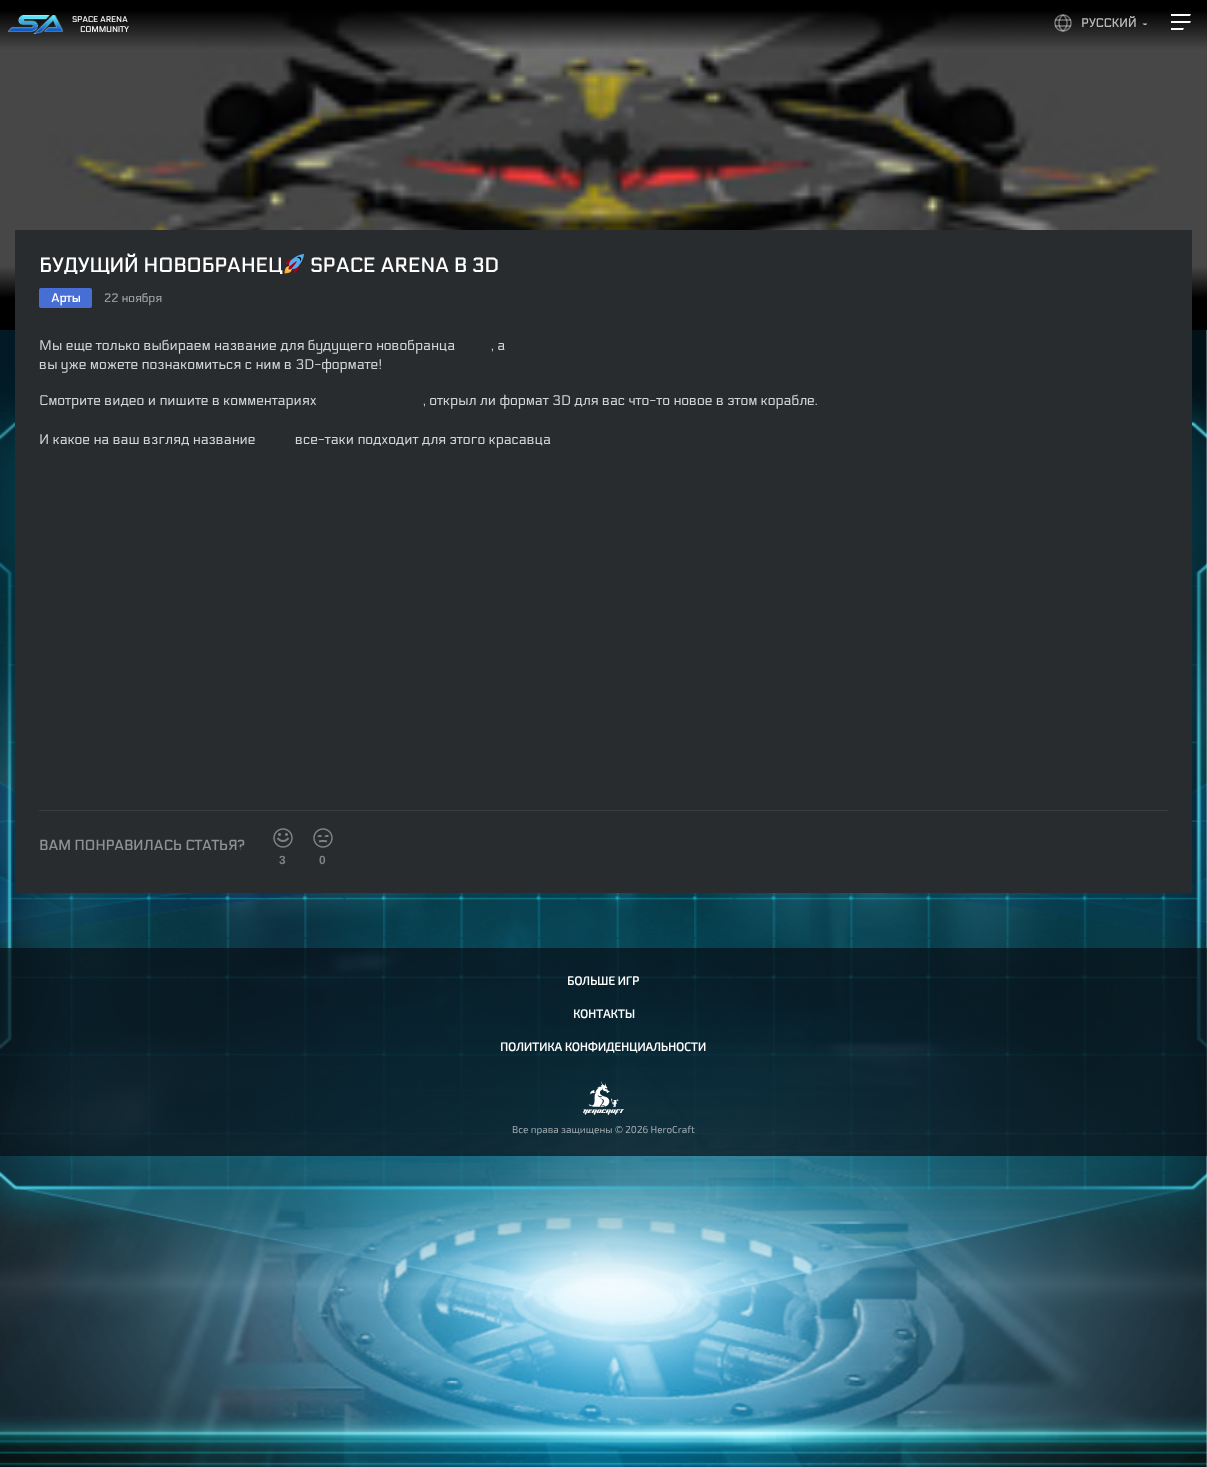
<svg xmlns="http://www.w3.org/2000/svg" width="1207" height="1467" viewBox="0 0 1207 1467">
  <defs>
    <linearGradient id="g1" gradientUnits="userSpaceOnUse" x1="604" y1="0" x2="604" y2="50"><stop offset="0.2" stop-color="rgb(0,0,0)"/><stop offset="1" stop-color="rgb(0,0,0)" stop-opacity="0"/></linearGradient>
    <clipPath id="clip1"><rect x="1142" y="23" width="5" height="2"/></clipPath>
  </defs>
  <rect width="100%" height="100%" fill="rgb(255,255,255)"/>
  <image x="0" y="10" width="1207" height="320" href="pic2.png"/>
  <rect x="0" y="0" width="1207" height="49" fill="url(#g1)"/>
  <image x="8" y="15" width="55" height="19" href="pic1.png"/>
  <g font-family="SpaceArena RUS" font-size="8" font-weight="bold" fill="rgb(255,255,255)">
    <text x="72" y="22">SPACE ARENA</text>
    <text x="80" y="32">COMMUNITY</text>
  </g>
  <image x="0" y="330" width="1207" height="1137" href="pic6.png"/>
  <rect x="15" y="230" width="1177" height="663" fill="rgb(41,44,47)"/>
  <text x="39" y="272" font-family="SpaceArena RUS" font-size="20" font-weight="bold" fill="rgb(255,255,255)">БУДУЩИЙ НОВОБРАНЕЦ</text>
  <image x="284" y="254" width="20" height="20" href="pic3.png"/>
  <text x="310" y="272" font-family="SpaceArena RUS" font-size="20" font-weight="bold" fill="rgb(255,255,255)">SPACE ARENA В 3D</text>
  <rect x="39" y="288" width="53" height="20" rx="2" fill="rgb(70,110,212)"/>
  <text x="51" y="302" font-family="SpaceArena RUS" font-size="12" font-weight="bold" fill="rgb(255,255,255)">Арты</text>
  <text x="104" y="302" font-family="SpaceArena RUS" font-size="12" fill="rgb(169,171,172)">22 ноября</text>
  <g font-family="SpaceArena RUS" font-size="14" fill="rgb(212,213,213)">
    <text x="39" y="350">Мы еще только выбираем название для будущего новобранца</text>
    <text x="491" y="350">, а</text>
    <text x="39" y="369">вы уже можете познакомиться с ним в 3D-формате!</text>
    <text x="39" y="405">Смотрите видео и пишите в комментариях</text>
    <text x="423" y="405">, открыл ли формат 3D для вас что-то новое в этом корабле.</text>
    <text x="39" y="444">И какое на ваш взгляд название</text>
    <text x="295" y="444">все-таки подходит для этого красавца</text>
  </g>
  <rect x="39" y="810" width="1129" height="1" fill="rgb(58,61,64)"/>
  <text x="39" y="850" font-family="SpaceArena RUS" font-size="14" font-weight="bold" fill="rgb(144,145,147)">ВАМ ПОНРАВИЛАСЬ СТАТЬЯ?</text>
  <image x="273" y="828" width="20" height="20" href="pic4.png"/>
  <text x="279" y="864" font-family="Liberation Sans" font-size="12" font-weight="bold" fill="rgb(127,128,130)">3</text>
  <image x="313" y="828" width="20" height="20" href="pic5.png"/>
  <text x="319" y="864" font-family="Liberation Sans" font-size="12" font-weight="bold" fill="rgb(127,128,130)">0</text>
  <rect x="0" y="948" width="1207" height="208" fill="rgba(8,14,21,0.7)"/>
  <g font-family="'Exo 2'" font-size="12" font-weight="bold" fill="rgb(255,255,255)">
    <text x="567" y="985">БОЛЬШЕ ИГР</text>
    <text x="573" y="1018">КОНТАКТЫ</text>
    <text x="500" y="1051">ПОЛИТИКА КОНФИДЕНЦИАЛЬНОСТИ</text>
  </g>
  <image x="583" y="1081" width="41" height="34" href="pic7.png"/>
  <text x="512" y="1133" font-family="'Exo 2'" font-size="10" fill="rgb(160,172,176)">Все права защищены © 2026 HeroCraft</text>
  <image x="1054" y="14" width="18" height="18" href="pic8.png"/>
  <text x="1081" y="27" font-family="SpaceArena RUS" font-size="12" font-weight="bold" fill="rgb(185,185,185)">РУССКИЙ</text>
  <g clip-path="url(#clip1)">
    <path d="M1145 26L1142.5 23.5H1147.5Z" fill="rgb(190,190,190)"/>
  </g>
  <image x="1171" y="14" width="20" height="16" href="pic9.png"/>
</svg>
